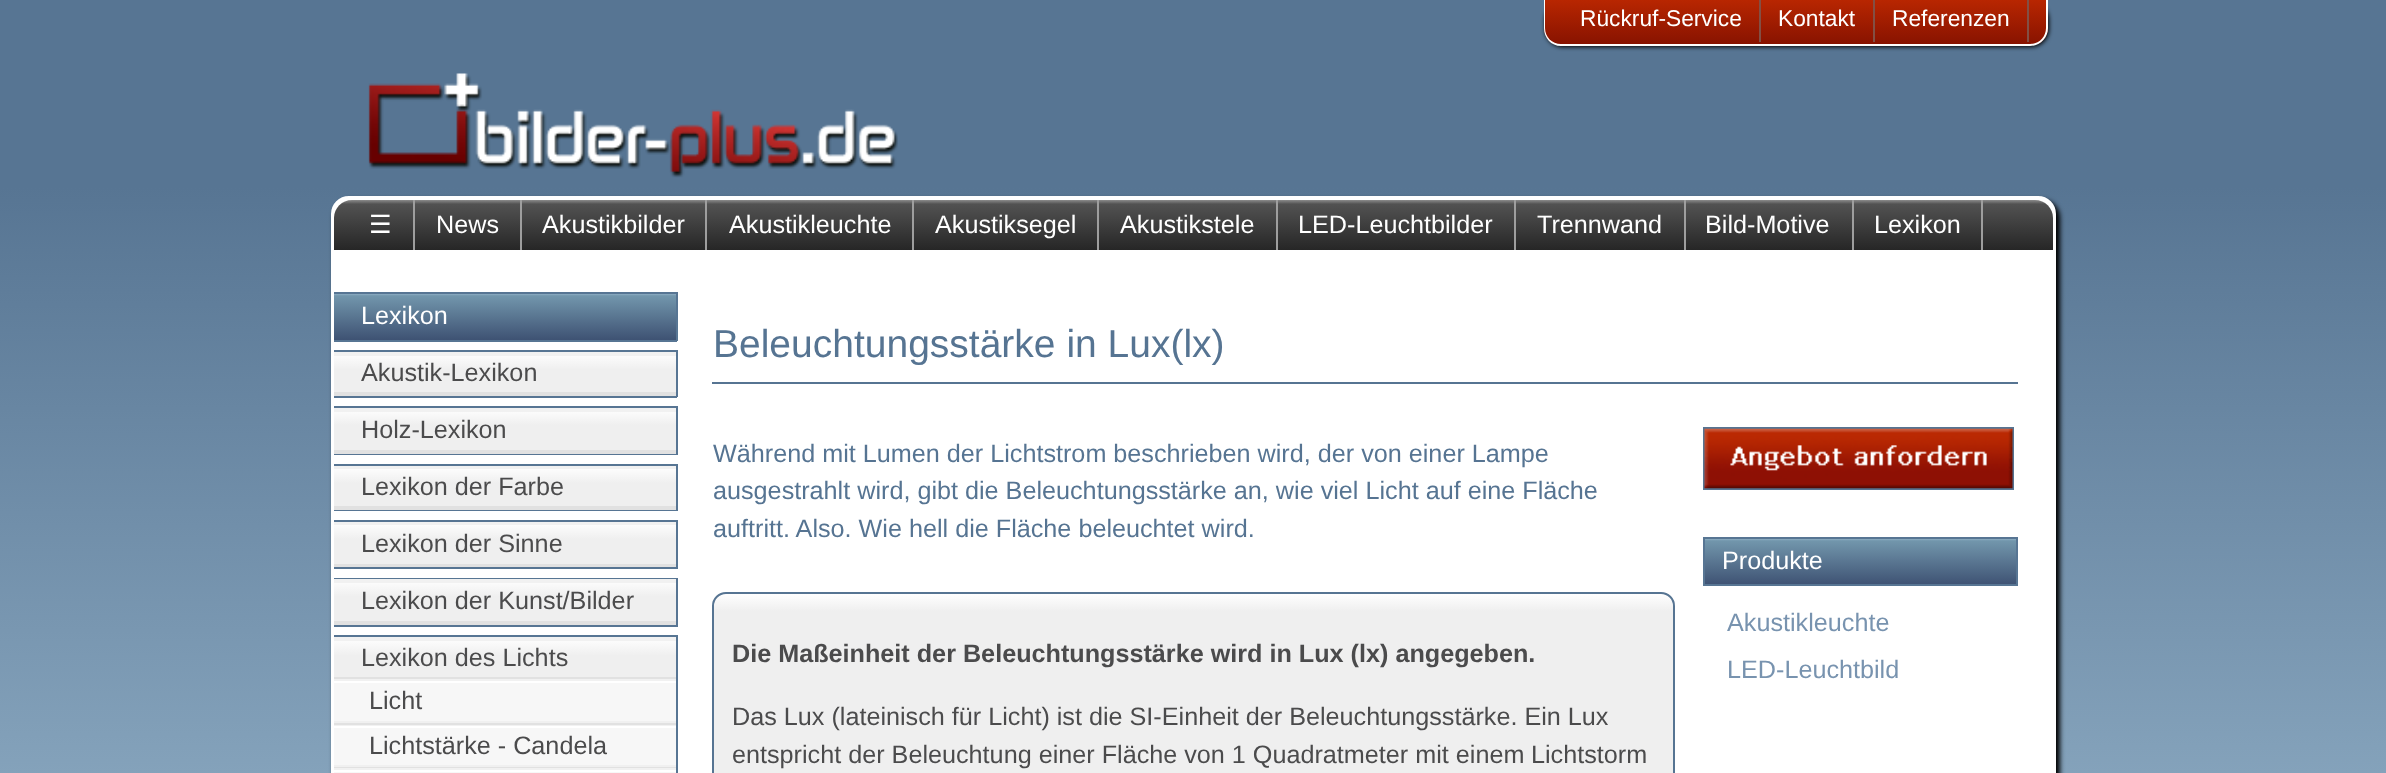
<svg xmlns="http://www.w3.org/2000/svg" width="2386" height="773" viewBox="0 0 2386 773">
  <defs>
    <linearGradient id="g1" gradientUnits="userSpaceOnUse" x1="1193" y1="0" x2="1194" y2="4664"><stop offset="0" stop-color="rgb(87,117,147)"/><stop offset="0.04" stop-color="rgb(87,117,147)"/><stop offset="0.23" stop-color="rgb(155,185,207)"/><stop offset="1" stop-color="rgb(155,185,207)"/></linearGradient>
    <clipPath id="clip1"><path d="M1544 0H2048V28C2048 38 2040 46 2030 46H1562C1552 46 1544 38 1544 28Z"/></clipPath>
    <linearGradient id="g2" gradientUnits="userSpaceOnUse" x1="1796" y1="0" x2="1796" y2="44"><stop offset="0" stop-color="rgb(184,38,1)"/><stop offset="1" stop-color="rgb(136,19,0)"/></linearGradient>
    <linearGradient id="g3" gradientUnits="userSpaceOnUse" x1="1194" y1="199" x2="1194" y2="250"><stop offset="0" stop-color="rgb(153,153,153)"/><stop offset="0.1" stop-color="rgb(82,82,82)"/><stop offset="1" stop-color="rgb(38,38,38)"/></linearGradient>
    <linearGradient id="g4" gradientUnits="userSpaceOnUse" x1="505" y1="294" x2="505" y2="340"><stop offset="0" stop-color="rgb(141,173,194)"/><stop offset="0.04" stop-color="rgb(114,150,172)"/><stop offset="1" stop-color="rgb(62,82,115)"/></linearGradient>
    <linearGradient id="g5" gradientUnits="userSpaceOnUse" x1="505" y1="352" x2="505" y2="396"><stop offset="0" stop-color="rgb(255,255,255)"/><stop offset="0.4" stop-color="rgb(239,239,239)"/><stop offset="1" stop-color="rgb(239,239,239)"/></linearGradient>
    <linearGradient id="g6" gradientUnits="userSpaceOnUse" x1="505" y1="408" x2="505" y2="453"><stop offset="0" stop-color="rgb(255,255,255)"/><stop offset="0.38" stop-color="rgb(239,239,239)"/><stop offset="1" stop-color="rgb(239,239,239)"/></linearGradient>
    <linearGradient id="g7" gradientUnits="userSpaceOnUse" x1="505" y1="466" x2="505" y2="509"><stop offset="0" stop-color="rgb(255,255,255)"/><stop offset="0.4" stop-color="rgb(239,239,239)"/><stop offset="1" stop-color="rgb(239,239,239)"/></linearGradient>
    <linearGradient id="g8" gradientUnits="userSpaceOnUse" x1="505" y1="522" x2="505" y2="567"><stop offset="0" stop-color="rgb(255,255,255)"/><stop offset="0.38" stop-color="rgb(239,239,239)"/><stop offset="1" stop-color="rgb(239,239,239)"/></linearGradient>
    <linearGradient id="g9" gradientUnits="userSpaceOnUse" x1="505" y1="579" x2="505" y2="625"><stop offset="0" stop-color="rgb(255,255,255)"/><stop offset="0.38" stop-color="rgb(239,239,239)"/><stop offset="1" stop-color="rgb(239,239,239)"/></linearGradient>
    <linearGradient id="g10" gradientUnits="userSpaceOnUse" x1="505" y1="637" x2="505" y2="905"><stop offset="0" stop-color="rgb(255,255,255)"/><stop offset="0.07" stop-color="rgb(239,239,239)"/><stop offset="1" stop-color="rgb(239,239,239)"/></linearGradient>
    <clipPath id="clip2"><rect x="712" y="592" width="963" height="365" rx="14"/></clipPath>
    <linearGradient id="g11" gradientUnits="userSpaceOnUse" x1="1194" y1="593" x2="1194" y2="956"><stop offset="0" stop-color="rgb(255,255,255)"/><stop offset="0.05" stop-color="rgb(239,239,239)"/><stop offset="1" stop-color="rgb(239,239,239)"/></linearGradient>
    <linearGradient id="g12" gradientUnits="userSpaceOnUse" x1="1860" y1="539" x2="1860" y2="585"><stop offset="0" stop-color="rgb(141,173,194)"/><stop offset="0.04" stop-color="rgb(114,150,172)"/><stop offset="1" stop-color="rgb(62,82,115)"/></linearGradient>
  </defs>
  <rect width="100%" height="100%" fill="rgb(255,255,255)"/>
  <rect x="0" y="0" width="2386" height="773" fill="url(#g1)"/>
  <rect x="1545" y="2" width="504" height="45" rx="18" fill="rgb(0,0,0)" filter="blur(2px)"/>
  <g clip-path="url(#clip1)">
    <rect x="1544" y="0" width="504" height="44" fill="url(#g2)"/>
  </g>
  <path d="M1544 0H2048V28C2048 38 2040 46 2030 46H1561C1551 46 1544 38 1544 28ZM1545 0H2046V28C2046 37 2039 44 2030 44H1561C1552 44 1545 37 1545 28Z" fill="rgb(255,255,255)" fill-rule="evenodd"/>
  <rect x="1759" y="0" width="2" height="42" fill="rgb(131,79,68)"/>
  <text x="1580" y="26" font-family="Liberation Sans" font-size="22.75" fill="rgb(255,255,255)">Rückruf-Service</text>
  <rect x="1873" y="0" width="2" height="42" fill="rgb(131,79,68)"/>
  <text x="1778" y="26" font-family="Liberation Sans" font-size="22.75" fill="rgb(255,255,255)">Kontakt</text>
  <rect x="2027" y="0" width="2" height="42" fill="rgb(131,79,68)"/>
  <text x="1892" y="26" font-family="Liberation Sans" font-size="22.75" fill="rgb(255,255,255)">Referenzen</text>
  <image x="368" y="73" width="530" height="105" href="pic1.png"/>
  <rect x="334" y="200" width="1726" height="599" rx="18" fill="rgb(0,0,0)" filter="blur(2.5px)"/>
  <path d="M349 198H2038C2047 198 2054 205 2054 214V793H333V214C333 205 340 198 349 198Z" fill="rgb(255,255,255)" stroke="rgb(255,255,255)" stroke-width="4"/>
  <path d="M352 200H2035C2045 200 2053 208 2053 218V250H334V218C334 208 342 200 352 200Z" fill="url(#g3)"/>
  <rect x="413" y="200" width="2" height="50" fill="rgb(158,158,158)"/>
  <text x="369" y="233" font-family="DejaVu Sans" font-size="25.2" fill="rgb(255,255,255)">☰</text>
  <rect x="520" y="200" width="2" height="50" fill="rgb(158,158,158)"/>
  <text x="436" y="233" font-family="Liberation Sans" font-size="25.2" fill="rgb(255,255,255)">News</text>
  <rect x="705" y="200" width="2" height="50" fill="rgb(158,158,158)"/>
  <text x="542" y="233" font-family="Liberation Sans" font-size="25.2" fill="rgb(255,255,255)">Akustikbilder</text>
  <rect x="912" y="200" width="2" height="50" fill="rgb(158,158,158)"/>
  <text x="729" y="233" font-family="Liberation Sans" font-size="25.2" fill="rgb(255,255,255)">Akustikleuchte</text>
  <rect x="1097" y="200" width="2" height="50" fill="rgb(158,158,158)"/>
  <text x="935" y="233" font-family="Liberation Sans" font-size="25.2" fill="rgb(255,255,255)">Akustiksegel</text>
  <rect x="1276" y="200" width="2" height="50" fill="rgb(158,158,158)"/>
  <text x="1120" y="233" font-family="Liberation Sans" font-size="25.2" fill="rgb(255,255,255)">Akustikstele</text>
  <rect x="1514" y="200" width="2" height="50" fill="rgb(158,158,158)"/>
  <text x="1298" y="233" font-family="Liberation Sans" font-size="25.2" fill="rgb(255,255,255)">LED-Leuchtbilder</text>
  <rect x="1684" y="200" width="2" height="50" fill="rgb(158,158,158)"/>
  <text x="1537" y="233" font-family="Liberation Sans" font-size="25.2" fill="rgb(255,255,255)">Trennwand</text>
  <rect x="1852" y="200" width="2" height="50" fill="rgb(158,158,158)"/>
  <text x="1705" y="233" font-family="Liberation Sans" font-size="25.2" fill="rgb(255,255,255)">Bild-Motive</text>
  <rect x="1981" y="200" width="2" height="50" fill="rgb(158,158,158)"/>
  <text x="1874" y="233" font-family="Liberation Sans" font-size="25.2" fill="rgb(255,255,255)">Lexikon</text>
  <rect x="334" y="294" width="342" height="46" fill="url(#g4)"/>
  <rect x="334" y="292" width="343" height="2" fill="rgb(87,117,147)"/>
  <rect x="676" y="292" width="2" height="49" fill="rgb(87,117,147)"/>
  <rect x="334" y="340" width="343" height="2" fill="rgb(87,117,147)"/>
  <text x="361" y="324" font-family="Liberation Sans" font-size="25.2" fill="rgb(255,255,255)">Lexikon</text>
  <rect x="334" y="356" width="342" height="36" fill="url(#g5)"/>
  <rect x="334" y="350" width="343" height="2" fill="rgb(87,117,147)"/>
  <rect x="676" y="350" width="2" height="47" fill="rgb(87,117,147)"/>
  <rect x="334" y="396" width="343" height="2" fill="rgb(87,117,147)"/>
  <rect x="334" y="352" width="342" height="4" fill="rgb(241,241,241)"/>
  <rect x="334" y="392" width="342" height="4" fill="rgb(225,225,225)"/>
  <text x="361" y="381" font-family="Liberation Sans" font-size="25.2" fill="rgb(75,75,76)">Akustik-Lexikon</text>
  <rect x="334" y="412" width="342" height="38" fill="url(#g6)"/>
  <rect x="334" y="406" width="343" height="2" fill="rgb(87,117,147)"/>
  <rect x="676" y="406" width="2" height="49" fill="rgb(87,117,147)"/>
  <rect x="334" y="453" width="343" height="2" fill="rgb(87,117,147)"/>
  <rect x="334" y="408" width="342" height="4" fill="rgb(241,241,241)"/>
  <rect x="334" y="450" width="342" height="4" fill="rgb(225,225,225)"/>
  <text x="361" y="438" font-family="Liberation Sans" font-size="25.2" fill="rgb(75,75,76)">Holz-Lexikon</text>
  <rect x="334" y="469" width="342" height="37" fill="url(#g7)"/>
  <rect x="334" y="464" width="343" height="2" fill="rgb(87,117,147)"/>
  <rect x="676" y="464" width="2" height="47" fill="rgb(87,117,147)"/>
  <rect x="334" y="509" width="343" height="2" fill="rgb(87,117,147)"/>
  <rect x="334" y="466" width="342" height="3" fill="rgb(241,241,241)"/>
  <rect x="334" y="506" width="342" height="4" fill="rgb(225,225,225)"/>
  <text x="361" y="495" font-family="Liberation Sans" font-size="25.2" fill="rgb(75,75,76)">Lexikon der Farbe</text>
  <rect x="334" y="525" width="342" height="39" fill="url(#g8)"/>
  <rect x="334" y="520" width="343" height="2" fill="rgb(87,117,147)"/>
  <rect x="676" y="520" width="2" height="49" fill="rgb(87,117,147)"/>
  <rect x="334" y="567" width="343" height="2" fill="rgb(87,117,147)"/>
  <rect x="334" y="522" width="342" height="3" fill="rgb(241,241,241)"/>
  <rect x="334" y="564" width="342" height="3" fill="rgb(225,225,225)"/>
  <text x="361" y="552" font-family="Liberation Sans" font-size="25.2" fill="rgb(75,75,76)">Lexikon der Sinne</text>
  <rect x="334" y="583" width="342" height="38" fill="url(#g9)"/>
  <rect x="334" y="578" width="343" height="1" fill="rgb(87,117,147)"/>
  <rect x="676" y="578" width="2" height="49" fill="rgb(87,117,147)"/>
  <rect x="334" y="625" width="343" height="2" fill="rgb(87,117,147)"/>
  <rect x="334" y="579" width="342" height="4" fill="rgb(241,241,241)"/>
  <rect x="334" y="621" width="342" height="4" fill="rgb(225,225,225)"/>
  <text x="361" y="609" font-family="Liberation Sans" font-size="25.2" fill="rgb(75,75,76)">Lexikon der Kunst/Bilder</text>
  <rect x="334" y="641" width="342" height="36" fill="url(#g10)"/>
  <rect x="334" y="635" width="343" height="2" fill="rgb(87,117,147)"/>
  <rect x="676" y="635" width="2" height="138" fill="rgb(87,117,147)"/>
  <rect x="334" y="637" width="342" height="4" fill="rgb(241,241,241)"/>
  <rect x="334" y="677" width="342" height="2" fill="rgb(225,225,225)"/>
  <text x="361" y="666" font-family="Liberation Sans" font-size="25.2" fill="rgb(75,75,76)">Lexikon des Lichts</text>
  <rect x="334" y="679" width="342" height="2" fill="rgb(241,241,241)"/>
  <rect x="334" y="723" width="342" height="2" fill="rgb(225,225,225)"/>
  <rect x="334" y="683" width="342" height="38" fill="rgb(247,247,247)"/>
  <rect x="334" y="721" width="342" height="2" fill="rgb(240,240,240)"/>
  <text x="369" y="709" font-family="Liberation Sans" font-size="25.2" fill="rgb(75,75,76)">Licht</text>
  <rect x="334" y="725" width="342" height="1" fill="rgb(241,241,241)"/>
  <rect x="334" y="767" width="342" height="1" fill="rgb(225,225,225)"/>
  <rect x="334" y="728" width="342" height="37" fill="rgb(247,247,247)"/>
  <rect x="334" y="765" width="342" height="2" fill="rgb(240,240,240)"/>
  <text x="369" y="754" font-family="Liberation Sans" font-size="25.2" fill="rgb(75,75,76)">Lichtstärke - Candela</text>
  <rect x="334" y="768" width="342" height="2" fill="rgb(241,241,241)"/>
  <rect x="334" y="772" width="342" height="1" fill="rgb(247,247,247)"/>
  <rect x="712" y="382" width="1306" height="2" fill="rgb(86,116,146)"/>
  <text x="713" y="357" font-family="Liberation Sans" font-size="39" fill="rgb(86,116,146)">Beleuchtungsstärke in Lux(lx)</text>
  <g font-family="Liberation Sans" font-size="25.2" fill="rgb(86,116,146)">
    <text>
      <tspan x="713" y="462">Während mit Lumen der Lichtstrom beschrieben wird, der von einer Lampe</tspan>
      <tspan x="713" y="499">ausgestrahlt wird, gibt die Beleuchtungsstärke an, wie viel Licht auf eine Fläche</tspan>
      <tspan x="713" y="537">auftritt. Also. Wie hell die Fläche beleuchtet wird.</tspan>
    </text>
  </g>
  <g clip-path="url(#clip2)">
    <rect x="712" y="593" width="963" height="180" fill="url(#g11)"/>
  </g>
  <rect x="713" y="593" width="961" height="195" rx="13" fill="none" stroke="rgb(86,116,146)" stroke-width="2"/>
  <text x="732" y="662" font-family="Liberation Sans" font-size="25.2" font-weight="bold" fill="rgb(75,75,76)">Die Maßeinheit der Beleuchtungsstärke wird in Lux (lx) angegeben.</text>
  <g font-family="Liberation Sans" font-size="25.2" fill="rgb(75,75,76)">
    <text>
      <tspan x="732" y="725">Das Lux (lateinisch für Licht) ist die SI-Einheit der Beleuchtungsstärke. Ein Lux</tspan>
      <tspan x="732" y="763">entspricht der Beleuchtung einer Fläche von 1 Quadratmeter mit einem</tspan>
    </text>
    <text x="1531" y="763">Lichtstorm</text>
  </g>
  <rect x="1704" y="428" width="309" height="61" fill="none" stroke="rgb(86,116,146)" stroke-width="2"/>
  <image x="1704" y="428" width="309" height="61" href="pic2.png"/>
  <rect x="1705" y="539" width="311" height="45" fill="url(#g12)"/>
  <rect x="1704" y="538" width="313" height="47" fill="none" stroke="rgb(87,117,147)" stroke-width="2"/>
  <text x="1722" y="569" font-family="Liberation Sans" font-size="25.2" fill="rgb(255,255,255)">Produkte</text>
  <g font-family="Liberation Sans" font-size="25.2" fill="rgb(120,147,175)">
    <text>
      <tspan x="1727" y="631">Akustikleuchte</tspan>
      <tspan x="1727" y="678">LED-Leuchtbild</tspan>
    </text>
  </g>
</svg>
